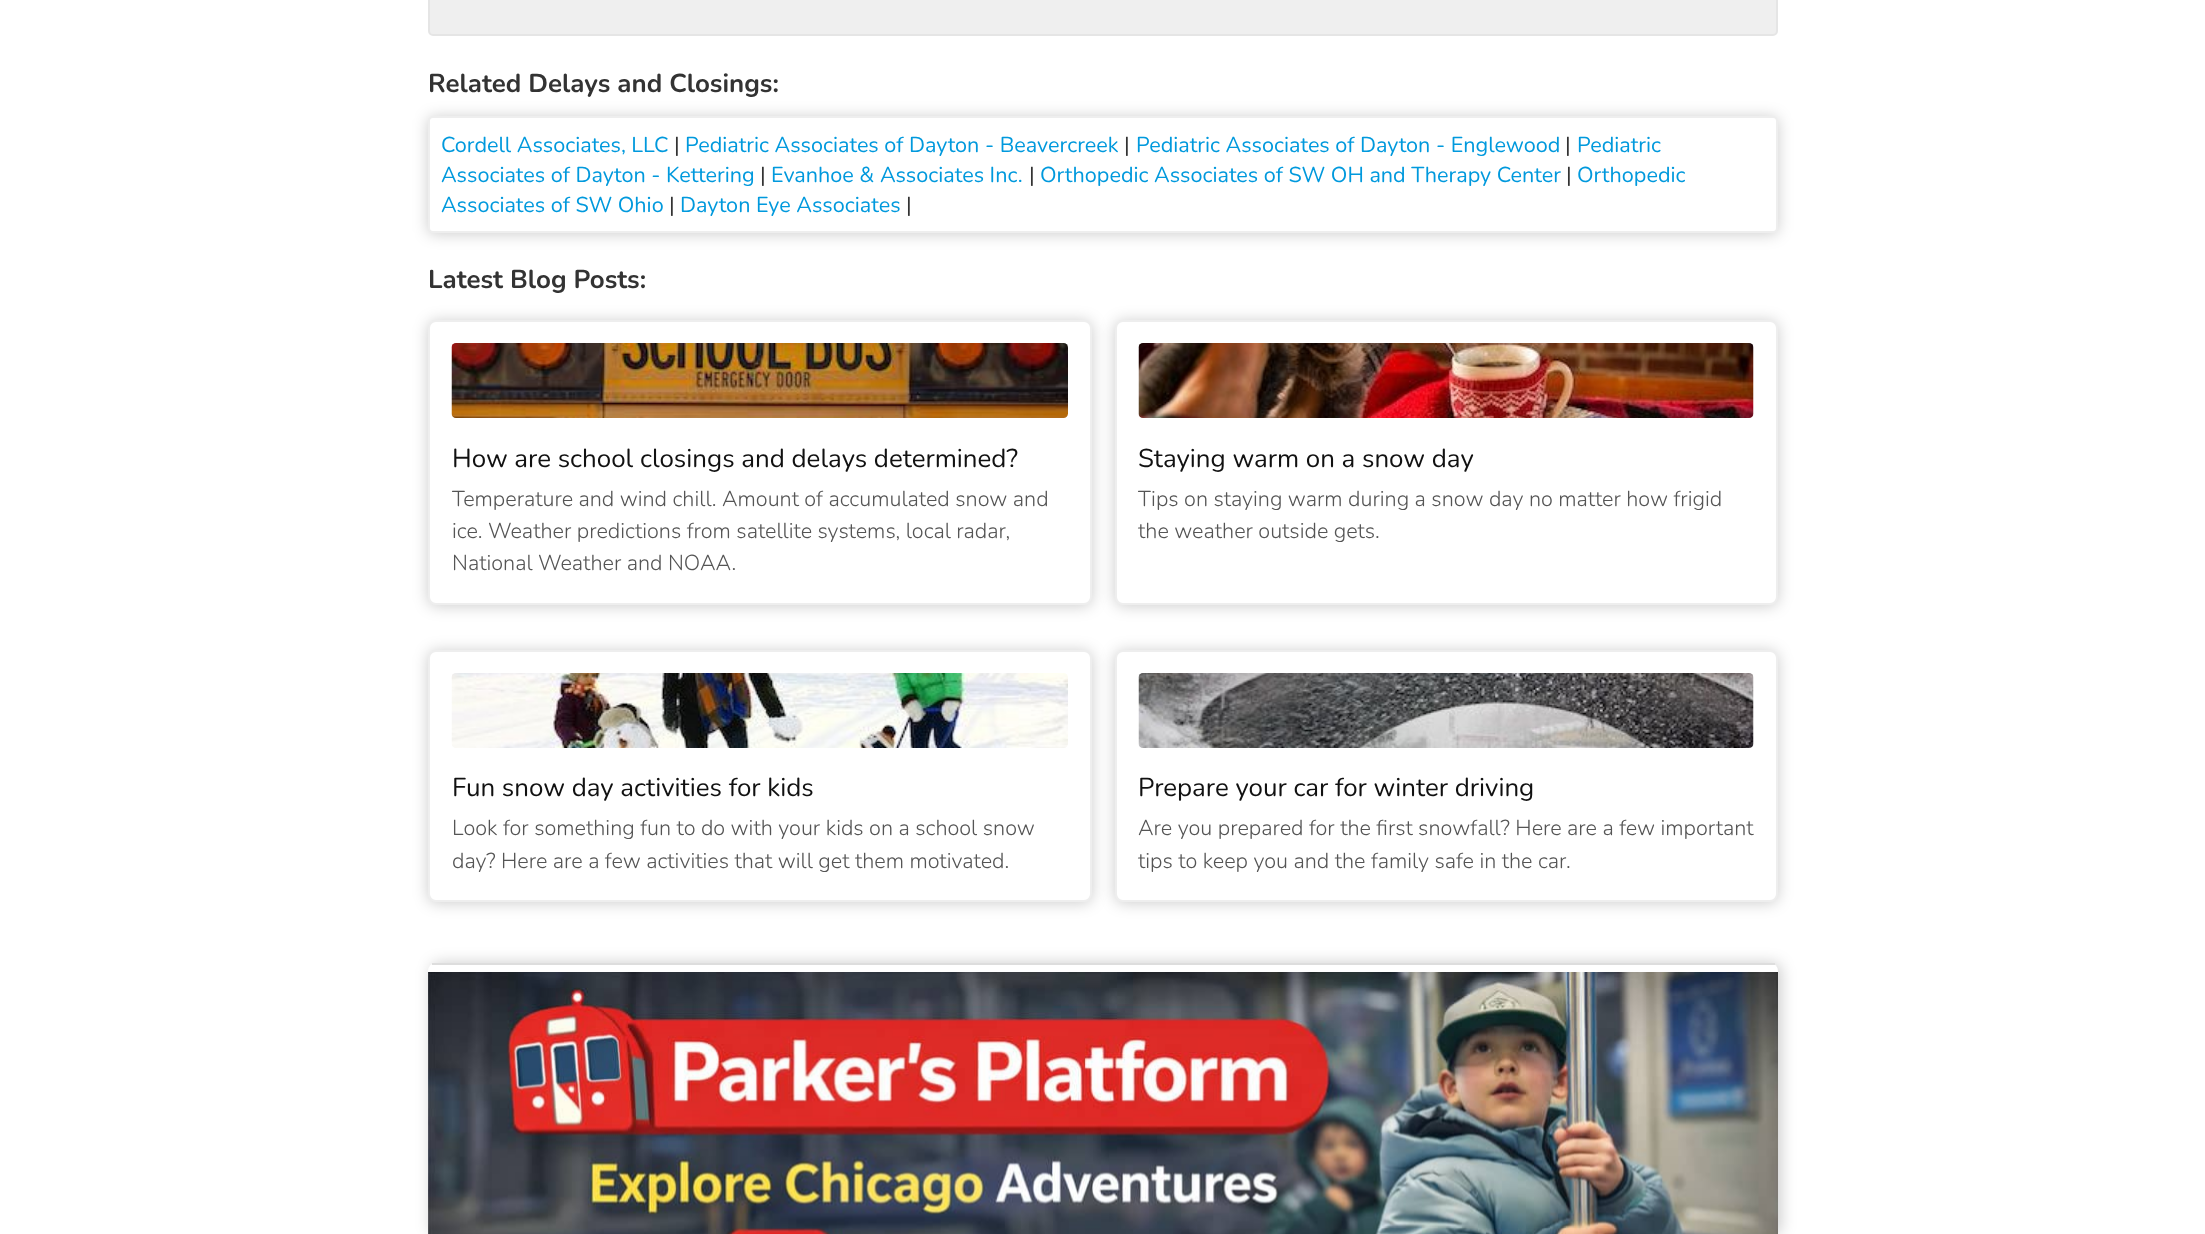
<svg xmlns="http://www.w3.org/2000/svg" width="2205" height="1234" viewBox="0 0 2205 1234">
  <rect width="100%" height="100%" fill="rgb(255,255,255)"/>
  <rect x="429" y="-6" width="1348" height="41" rx="4" fill="rgb(239,239,239)" stroke="rgb(229,229,229)" stroke-width="2"/>
  <rect x="428" y="117" width="1350" height="117" rx="5" fill="rgba(0,0,0,0.2)" filter="blur(7.5px)"/>
  <text x="428" y="92" font-family="Nunito" font-size="25.9" font-weight="bold" fill="rgb(51,51,51)">Related Delays and Closings:</text>
  <rect x="429" y="117" width="1348" height="115" rx="4" fill="rgb(255,255,255)" stroke="rgb(238,238,238)" stroke-width="2"/>
  <text x="441" y="152" font-family="Nunito" font-size="21.6" fill="rgb(0,153,221)">Cordell Associates, LLC</text>
  <text x="674" y="152" font-family="Nunito" font-size="21.6" fill="rgb(51,51,51)">|</text>
  <text x="685" y="152" font-family="Nunito" font-size="21.6" fill="rgb(0,153,221)">Pediatric Associates of Dayton - Beavercreek</text>
  <text x="1124" y="152" font-family="Nunito" font-size="21.6" fill="rgb(51,51,51)">|</text>
  <text x="1136" y="152" font-family="Nunito" font-size="21.6" fill="rgb(0,153,221)">Pediatric Associates of Dayton - Englewood</text>
  <text x="1565" y="152" font-family="Nunito" font-size="21.6" fill="rgb(51,51,51)">|</text>
  <g font-family="Nunito" font-size="21.6" fill="rgb(0,153,221)">
    <text x="1577" y="152">Pediatric</text>
    <text x="441" y="182">Associates of Dayton - Kettering</text>
  </g>
  <text x="760" y="182" font-family="Nunito" font-size="21.6" fill="rgb(51,51,51)">|</text>
  <text x="771" y="182" font-family="Nunito" font-size="21.6" fill="rgb(0,153,221)">Evanhoe &amp; Associates Inc.</text>
  <text x="1029" y="182" font-family="Nunito" font-size="21.6" fill="rgb(51,51,51)">|</text>
  <text x="1040" y="182" font-family="Nunito" font-size="21.6" fill="rgb(0,153,221)">Orthopedic Associates of SW OH and Therapy Center</text>
  <text x="1566" y="182" font-family="Nunito" font-size="21.6" fill="rgb(51,51,51)">|</text>
  <g font-family="Nunito" font-size="21.6" fill="rgb(0,153,221)">
    <text x="1577" y="182">Orthopedic</text>
    <text x="441" y="212">Associates of SW Ohio</text>
  </g>
  <text x="669" y="212" font-family="Nunito" font-size="21.6" fill="rgb(51,51,51)">|</text>
  <text x="680" y="212" font-family="Nunito" font-size="21.6" fill="rgb(0,153,221)">Dayton Eye Associates</text>
  <text x="906" y="212" font-family="Nunito" font-size="21.6" fill="rgb(51,51,51)">|</text>
  <text x="428" y="288" font-family="Nunito" font-size="25.9" font-weight="bold" fill="rgb(51,51,51)">Latest Blog Posts:</text>
  <rect x="428" y="321" width="664" height="285" rx="8" fill="rgba(0,0,0,0.2)" filter="blur(7.5px)"/>
  <rect x="429" y="321" width="662" height="283" rx="7" fill="rgb(255,255,255)" stroke="rgb(238,238,238)" stroke-width="2"/>
  <image x="451" y="343" width="617" height="75" href="pic1.png"/>
  <text x="452" y="467" font-family="Nunito" font-size="25.9" fill="rgb(17,17,17)">How are school closings and delays determined?</text>
  <g font-family="Nunito" font-size="21.6" font-weight="300" fill="rgb(85,85,85)">
    <text>
      <tspan x="452" y="506">Temperature and wind chill. Amount of accumulated snow and</tspan>
      <tspan x="452" y="538">ice. Weather predictions from satellite systems, local radar,</tspan>
      <tspan x="452" y="570">National Weather and NOAA.</tspan>
    </text>
  </g>
  <rect x="1115" y="321" width="663" height="285" rx="8" fill="rgba(0,0,0,0.2)" filter="blur(7.5px)"/>
  <rect x="1116" y="321" width="661" height="283" rx="7" fill="rgb(255,255,255)" stroke="rgb(238,238,238)" stroke-width="2"/>
  <image x="1138" y="343" width="616" height="75" href="pic2.png"/>
  <text x="1138" y="467" font-family="Nunito" font-size="25.9" fill="rgb(17,17,17)">Staying warm on a snow day</text>
  <g font-family="Nunito" font-size="21.6" font-weight="300" fill="rgb(85,85,85)">
    <text>
      <tspan x="1138" y="506">Tips on staying warm during a snow day no matter how frigid</tspan>
      <tspan x="1138" y="538">the weather outside gets.</tspan>
    </text>
  </g>
  <rect x="428" y="651" width="664" height="252" rx="8" fill="rgba(0,0,0,0.2)" filter="blur(7.5px)"/>
  <rect x="429" y="651" width="662" height="250" rx="7" fill="rgb(255,255,255)" stroke="rgb(238,238,238)" stroke-width="2"/>
  <image x="451" y="673" width="617" height="75" href="pic3.png"/>
  <text x="452" y="796" font-family="Nunito" font-size="25.9" fill="rgb(17,17,17)">Fun snow day activities for kids</text>
  <g font-family="Nunito" font-size="21.6" font-weight="300" fill="rgb(85,85,85)">
    <text>
      <tspan x="452" y="835">Look for something fun to do with your kids on a school snow</tspan>
      <tspan x="452" y="868">day? Here are a few activities that will get them motivated.</tspan>
    </text>
  </g>
  <rect x="1115" y="651" width="663" height="252" rx="8" fill="rgba(0,0,0,0.2)" filter="blur(7.5px)"/>
  <rect x="1116" y="651" width="661" height="250" rx="7" fill="rgb(255,255,255)" stroke="rgb(238,238,238)" stroke-width="2"/>
  <image x="1138" y="673" width="616" height="75" href="pic4.png"/>
  <text x="1138" y="796" font-family="Nunito" font-size="25.9" fill="rgb(17,17,17)">Prepare your car for winter driving</text>
  <g font-family="Nunito" font-size="21.6" font-weight="300" fill="rgb(85,85,85)">
    <text>
      <tspan x="1138" y="835">Are you prepared for the first snowfall? Here are a few important</tspan>
      <tspan x="1138" y="868">tips to keep you and the family safe in the car.</tspan>
    </text>
  </g>
  <rect x="431" y="963" width="1350" height="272" rx="8" fill="rgba(0,0,0,0.2)" filter="blur(7.5px)"/>
  <rect x="428" y="963" width="1350" height="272" rx="8" fill="rgb(255,255,255)"/>
  <rect x="432" y="963" width="1343" height="2" fill="rgb(221,221,221)"/>
  <image x="428" y="972" width="1350" height="262" href="pic5.png"/>
</svg>
